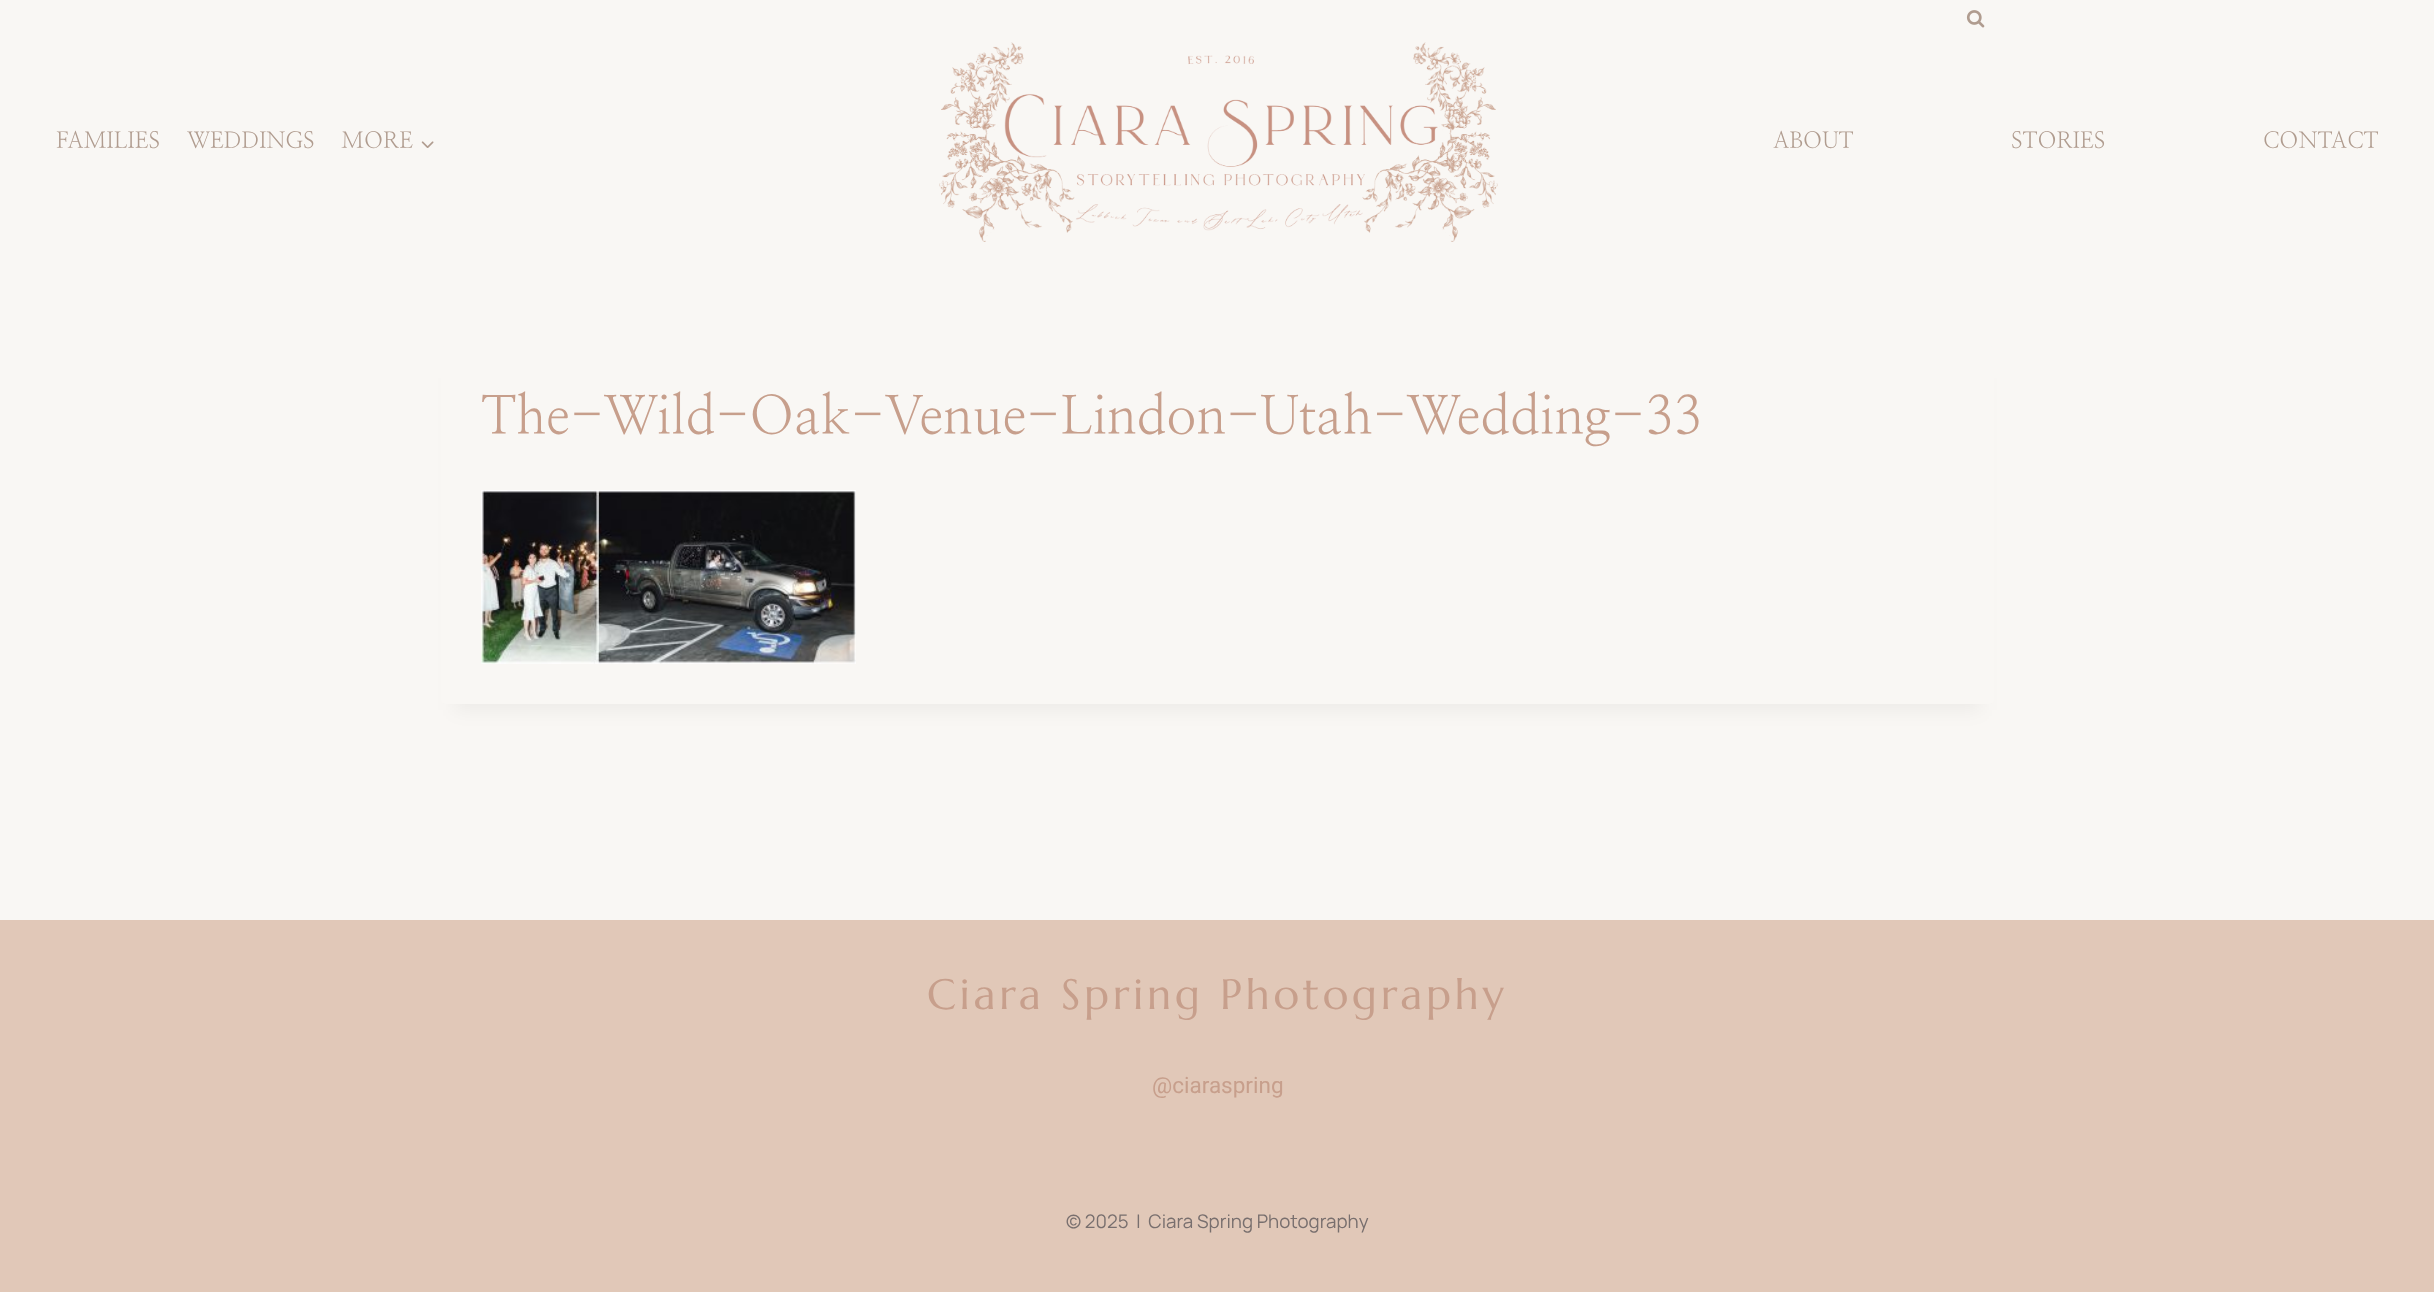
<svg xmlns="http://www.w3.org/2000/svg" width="2434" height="1292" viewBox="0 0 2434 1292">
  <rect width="100%" height="100%" fill="rgb(249,247,244)"/>
  <image x="1966" y="10" width="19" height="18" href="pic1.png"/>
  <g font-family="NanumMyeongjo" font-size="22.5" fill="rgb(176,156,143)">
    <text x="56" y="148">FAMILIES</text>
    <text x="187" y="148">WEDDINGS</text>
    <text x="341" y="148">MORE</text>
  </g>
  <image x="421" y="141" width="13" height="7" href="pic2.png"/>
  <image x="939" y="42" width="559" height="200" href="pic3.png"/>
  <g font-family="NanumMyeongjo" font-size="22.5" fill="rgb(176,156,143)">
    <text x="1773" y="148">ABOUT</text>
    <text x="2011" y="148">STORIES</text>
    <text x="2263" y="148">CONTACT</text>
  </g>
  <rect x="454" y="378" width="1527" height="332" fill="rgba(0,0,0,0.05)" filter="blur(9.5px)"/>
  <rect x="441" y="346" width="1553" height="358" rx="5" fill="rgb(249,247,244)"/>
  <text x="481" y="434" font-family="NanumMyeongjo" font-size="53.1" fill="rgb(199,159,140)">The-Wild-Oak-Venue-Lindon-Utah-Wedding-33</text>
  <image x="481" y="490" width="375" height="174" href="pic4.png"/>
  <rect x="0" y="920" width="2434" height="372" fill="rgb(225,200,184)"/>
  <text x="927" y="1009" font-family="Marcellus" font-size="42.5" letter-spacing="3.75" fill="rgb(199,159,140)">Ciara Spring Photography</text>
  <text x="1152" y="1093" font-family="Roboto" font-size="22.5" fill="rgb(199,159,140)">@ciaraspring</text>
  <text x="1066" y="1228" font-family="Manrope" font-size="18.75" fill="rgb(120,111,110)" xml:space="preserve">© 2025  |  Ciara Spring Photography</text>
</svg>
